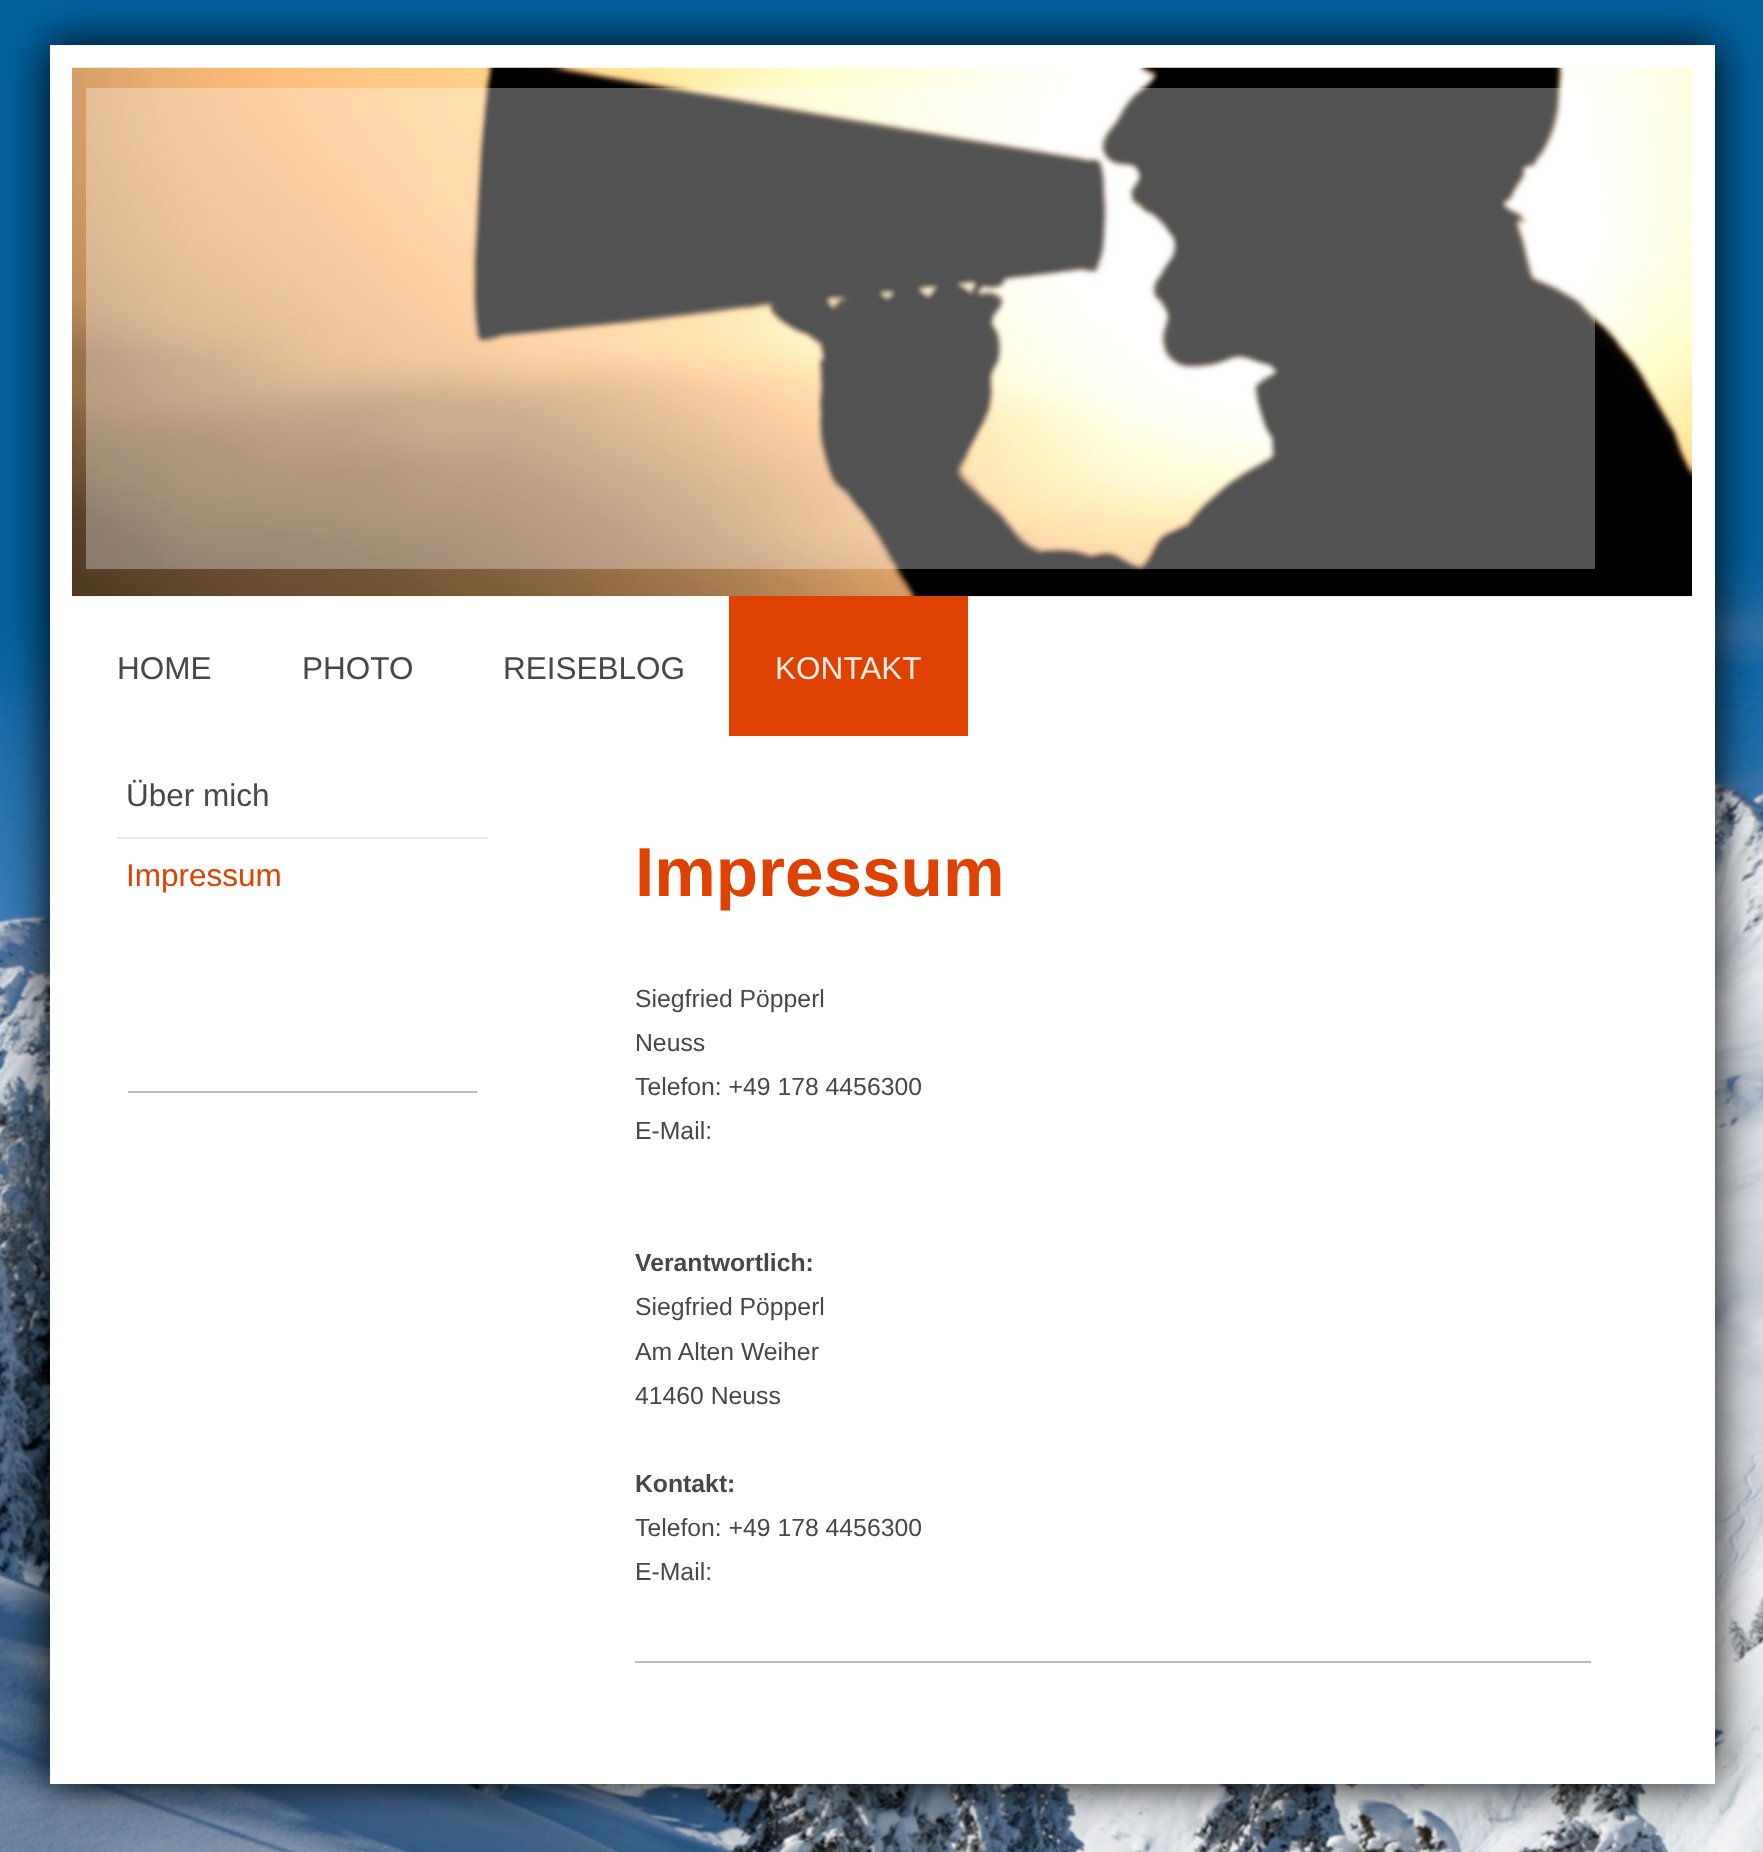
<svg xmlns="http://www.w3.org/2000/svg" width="1763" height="1852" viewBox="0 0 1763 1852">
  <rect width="100%" height="100%" fill="rgb(255,255,255)"/>
  <image x="0" y="0" width="1763" height="1852" href="pic1.png"/>
  <rect x="50" y="45" width="1665" height="1739" fill="rgb(0,0,0)" filter="blur(22.5px)"/>
  <rect x="50" y="45" width="1665" height="1739" fill="rgb(255,255,255)"/>
  <image x="72" y="67" width="1620" height="530" href="pic2.png"/>
  <rect x="86" y="88" width="1509" height="481" fill="rgba(255,255,255,0.32)"/>
  <g font-family="Liberation Sans" font-size="31.5" fill="rgb(71,71,71)">
    <text x="117" y="679">HOME</text>
    <text x="302" y="679">PHOTO</text>
    <text x="503" y="679">REISEBLOG</text>
  </g>
  <rect x="729" y="596" width="239" height="140" fill="rgb(223,65,0)"/>
  <text x="775" y="679" font-family="Liberation Sans" font-size="31.5" fill="rgb(252,236,230)">KONTAKT</text>
  <rect x="117" y="837" width="371" height="2" fill="rgb(230,230,230)"/>
  <text x="126" y="806" font-family="Liberation Sans" font-size="31.5" fill="rgb(71,71,71)">Über mich</text>
  <text x="126" y="886" font-family="Liberation Sans" font-size="31.5" fill="rgb(223,65,0)">Impressum</text>
  <rect x="128" y="1091" width="349" height="2" fill="rgb(186,186,186)"/>
  <text x="635" y="896" font-family="Liberation Sans" font-size="69.25" font-weight="bold" fill="rgb(223,65,0)">Impressum</text>
  <g font-family="Liberation Sans" font-size="24.75" fill="rgb(71,71,71)">
    <text>
      <tspan x="635" y="1007">Siegfried Pöpperl</tspan>
      <tspan x="635" y="1051">Neuss</tspan>
      <tspan x="635" y="1095">Telefon: +49 178 4456300</tspan>
      <tspan x="635" y="1139">E-Mail:</tspan>
    </text>
  </g>
  <text x="635" y="1271" font-family="Liberation Sans" font-size="24.75" font-weight="bold" fill="rgb(71,71,71)">Verantwortlich:</text>
  <g font-family="Liberation Sans" font-size="24.75" fill="rgb(71,71,71)">
    <text>
      <tspan x="635" y="1315">Siegfried Pöpperl</tspan>
      <tspan x="635" y="1360">Am Alten Weiher</tspan>
      <tspan x="635" y="1404">41460 Neuss</tspan>
    </text>
  </g>
  <text x="635" y="1492" font-family="Liberation Sans" font-size="24.75" font-weight="bold" fill="rgb(71,71,71)">Kontakt:</text>
  <g font-family="Liberation Sans" font-size="24.75" fill="rgb(71,71,71)">
    <text>
      <tspan x="635" y="1536">Telefon: +49 178 4456300</tspan>
      <tspan x="635" y="1580">E-Mail:</tspan>
    </text>
  </g>
  <rect x="635" y="1661" width="956" height="2" fill="rgb(186,186,186)"/>
  <rect x="80" y="1851" width="13" height="1" fill="rgba(175,175,175,0.06)"/>
</svg>
